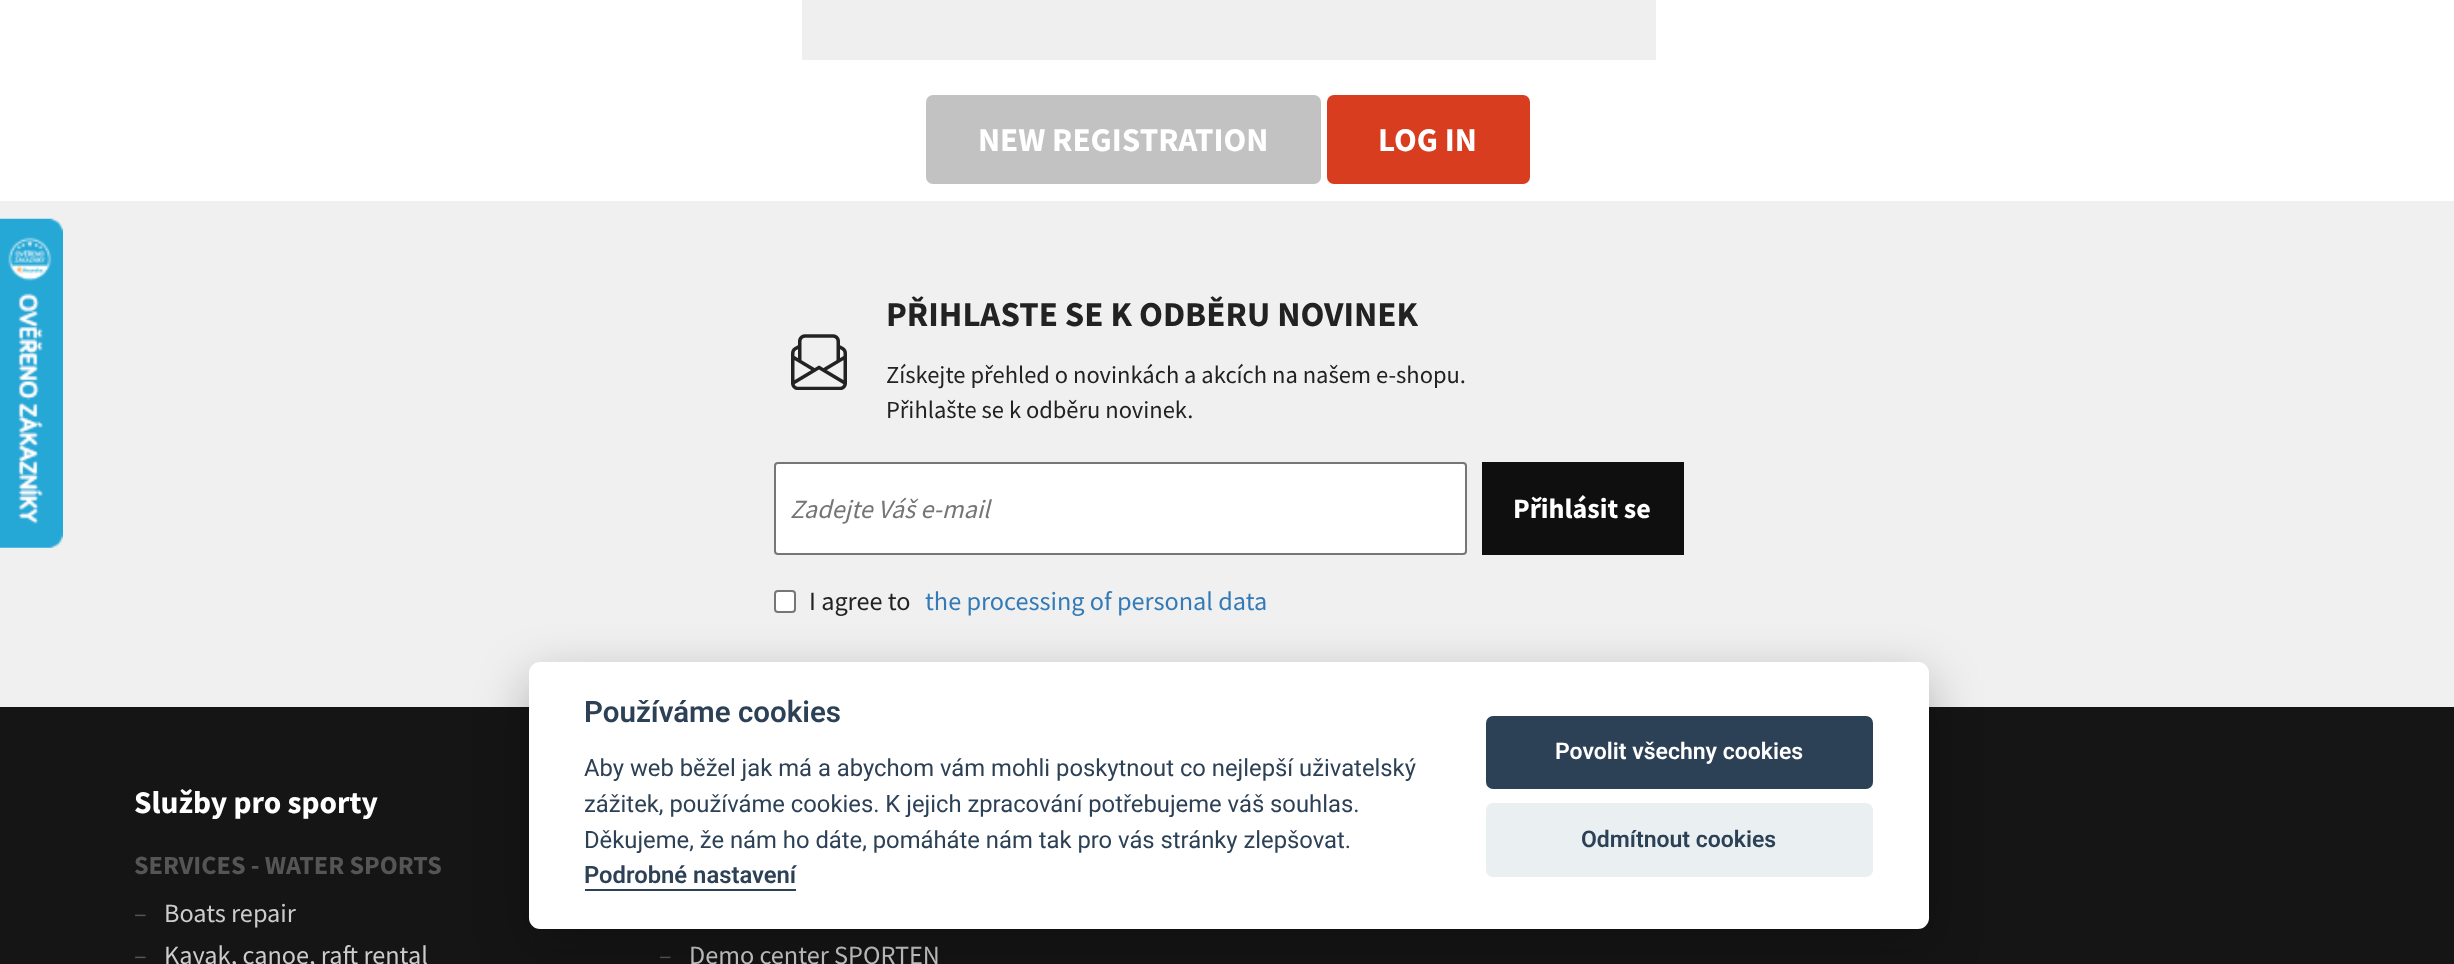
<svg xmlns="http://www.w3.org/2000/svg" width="2454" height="964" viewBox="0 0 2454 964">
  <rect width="100%" height="100%" fill="rgb(255,255,255)"/>
  <rect x="802" y="0" width="854" height="60" fill="rgb(239,239,239)"/>
  <rect x="926" y="95" width="395" height="89" rx="7" fill="rgb(194,194,194)"/>
  <text x="978" y="151" font-family="Source Sans Pro" font-size="33.25" font-weight="bold" fill="rgb(255,255,255)">NEW REGISTRATION</text>
  <rect x="1327" y="95" width="203" height="89" rx="7" fill="rgb(215,61,30)"/>
  <text x="1378" y="151" font-family="Source Sans Pro" font-size="33.25" font-weight="bold" fill="rgb(255,255,255)">LOG IN</text>
  <rect x="0" y="201" width="2454" height="506" fill="rgb(240,240,240)"/>
  <image x="0" y="218" width="63" height="330" href="pic1.png"/>
  <text x="886" y="326" font-family="Source Sans Pro" font-size="35" font-weight="bold" fill="rgb(34,34,34)">PŘIHLASTE SE K ODBĚRU NOVINEK</text>
  <image x="791" y="334" width="56" height="56" href="pic2.png"/>
  <g font-family="Source Sans Pro" font-size="24.5" fill="rgb(34,34,34)">
    <text>
      <tspan x="886" y="383">Získejte přehled o novinkách a akcích na našem e-shopu.</tspan>
      <tspan x="886" y="418">Přihlašte se k odběru novinek.</tspan>
    </text>
  </g>
  <rect x="775" y="463" width="691" height="91" rx="3" fill="rgb(255,255,255)" stroke="rgb(118,118,118)" stroke-width="2"/>
  <text x="790" y="518" font-family="Source Sans Pro" font-size="26.25" font-style="italic" fill="rgb(117,117,117)">Zadejte Váš e-mail</text>
  <rect x="1482" y="462" width="202" height="93" fill="rgb(15,15,15)"/>
  <text x="1513" y="518" font-family="Source Sans Pro" font-size="28" font-weight="bold" fill="rgb(255,255,255)">Přihlásit se</text>
  <rect x="775" y="591" width="20" height="21" rx="3" fill="rgb(255,255,255)" stroke="rgb(118,118,118)" stroke-width="2"/>
  <text x="809" y="610" font-family="Source Sans Pro" font-size="26.25" fill="rgb(34,34,34)">I agree to</text>
  <text x="925" y="610" font-family="Source Sans Pro" font-size="26.25" fill="rgb(51,122,183)">the processing of personal data</text>
  <rect x="0" y="707" width="2454" height="257" fill="rgb(21,21,21)"/>
  <text x="134" y="813" font-family="Source Sans Pro" font-size="31.5" font-weight="bold" fill="rgb(255,255,255)">Služby pro sporty</text>
  <text x="134" y="874" font-family="Source Sans Pro" font-size="26.25" font-weight="bold" fill="rgb(85,85,85)">SERVICES - WATER SPORTS</text>
  <text x="134" y="922" font-family="Source Sans Pro" font-size="26.25" fill="rgb(85,85,85)">–</text>
  <text x="164" y="922" font-family="Source Sans Pro" font-size="26.25" fill="rgb(204,204,204)">Boats repair</text>
  <text x="134" y="964" font-family="Source Sans Pro" font-size="26.25" fill="rgb(85,85,85)">–</text>
  <text x="164" y="964" font-family="Source Sans Pro" font-size="26.25" fill="rgb(204,204,204)">Kayak, canoe, raft rental</text>
  <text x="659" y="964" font-family="Source Sans Pro" font-size="26.25" fill="rgb(85,85,85)">–</text>
  <text x="689" y="964" font-family="Source Sans Pro" font-size="26.25" fill="rgb(204,204,204)">Demo center SPORTEN</text>
  <rect x="529" y="679" width="1400" height="268" rx="11" fill="rgba(2,2,3,0.28)" filter="blur(26px)"/>
  <rect x="529" y="662" width="1400" height="267" rx="11" fill="rgb(255,255,255)"/>
  <text x="584" y="722" font-family="Roboto" font-size="29.5" font-weight="600" fill="rgb(45,65,86)">Používáme cookies</text>
  <g font-family="Roboto" font-size="23.8" fill="rgb(45,65,86)">
    <text>
      <tspan x="584" y="776">Aby web běžel jak má a abychom vám mohli poskytnout co nejlepší uživatelský</tspan>
      <tspan x="584" y="812">zážitek, používáme cookies. K jejich zpracování potřebujeme váš souhlas.</tspan>
      <tspan x="584" y="848">Děkujeme, že nám ho dáte, pomáháte nám tak pro vás stránky zlepšovat.</tspan>
    </text>
  </g>
  <text x="584" y="883" font-family="Roboto" font-size="23.8" font-weight="600" fill="rgb(45,65,86)">Podrobné nastavení</text>
  <rect x="585" y="889" width="211" height="2" fill="rgb(45,65,86)"/>
  <rect x="1486" y="716" width="387" height="73" rx="7" fill="rgb(45,65,86)"/>
  <text x="1555" y="759" font-family="Roboto" font-size="23" font-weight="600" fill="rgb(255,255,255)">Povolit všechny cookies</text>
  <rect x="1486" y="803" width="387" height="74" rx="7" fill="rgb(234,239,242)"/>
  <text x="1581" y="847" font-family="Roboto" font-size="23" font-weight="600" fill="rgb(45,65,86)">Odmítnout cookies</text>
</svg>
